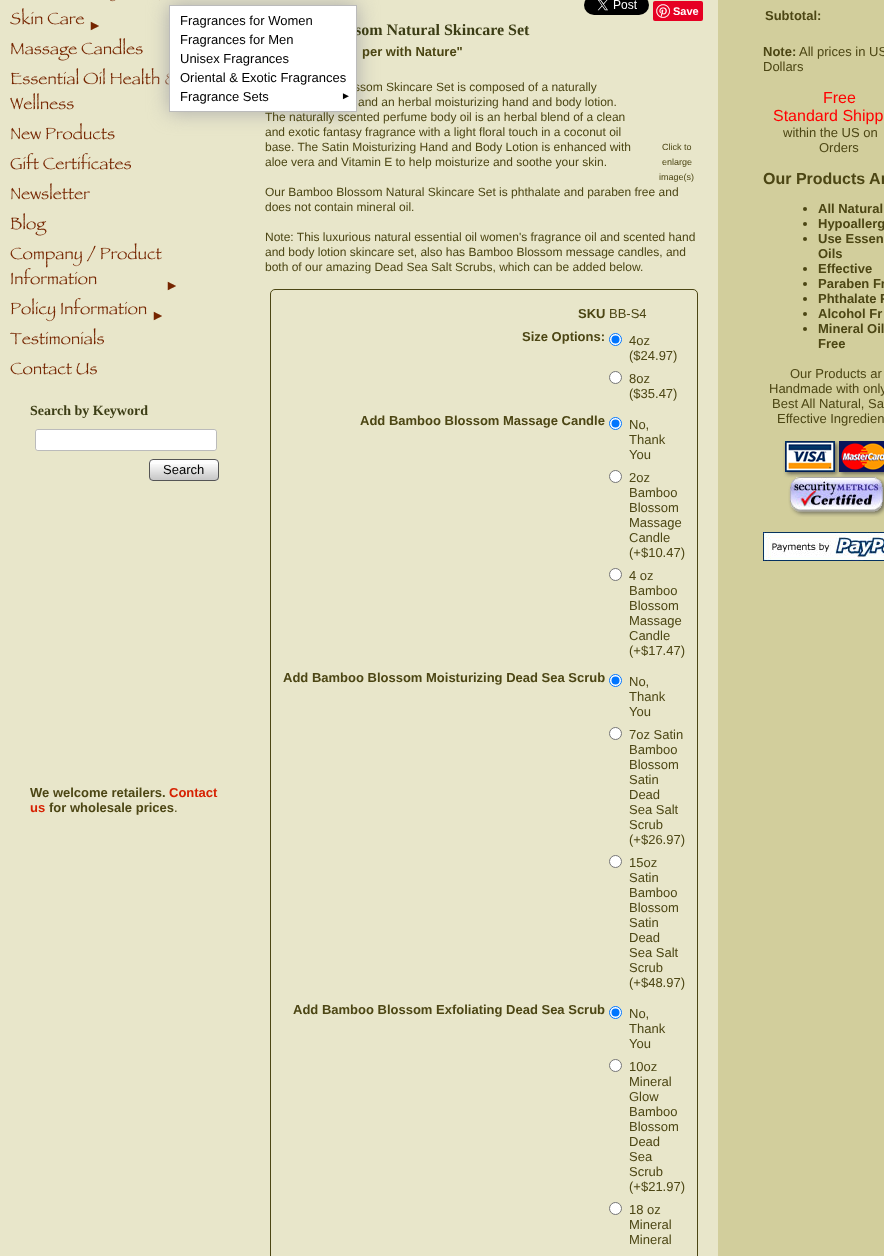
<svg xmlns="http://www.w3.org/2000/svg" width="884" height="1256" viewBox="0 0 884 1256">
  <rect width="100%" height="100%" fill="rgb(232,230,202)"/>
  <image x="10" y="8" width="89" height="23" href="pic1.png"/>
  <image x="110" y="0" width="50" height="2" href="pic2.png"/>
  <image x="11" y="38" width="132" height="23" href="pic3.png"/>
  <image x="10" y="68" width="159" height="42" href="pic4.png"/>
  <rect x="169" y="5" width="188" height="107" fill="rgb(170,170,170)" filter="blur(10px)"/>
  <text x="355" y="35" font-family="Liberation Serif" font-size="16" font-weight="bold" fill="rgb(60,61,21)">som Natural Skincare Set</text>
  <text x="354" y="91" font-family="Liberation Sans" font-size="12" fill="rgb(76,70,20)">ssom Skincare Set is composed of a naturally</text>
  <rect x="169.5" y="5.5" width="187" height="106" fill="rgb(255,255,255)" stroke="rgb(187,187,187)"/>
  <g font-family="Liberation Sans" font-size="13" fill="rgb(0,0,0)">
    <text>
      <tspan x="180" y="25">Fragrances for Women</tspan>
      <tspan x="180" y="44">Fragrances for Men</tspan>
      <tspan x="180" y="63">Unisex Fragrances</tspan>
      <tspan x="180" y="82">Oriental &amp; Exotic Fragrances</tspan>
      <tspan x="180" y="101">Fragrance Sets</tspan>
    </text>
  </g>
  <text x="341" y="99" font-family="Liberation Sans" font-size="10" fill="rgb(0,0,0)">►</text>
  <image x="11" y="123" width="104" height="17" href="pic5.png"/>
  <image x="10" y="153" width="121" height="17" href="pic6.png"/>
  <image x="11" y="183" width="79" height="17" href="pic7.png"/>
  <image x="10" y="213" width="37" height="23" href="pic8.png"/>
  <image x="10" y="243" width="166" height="48" href="pic9.png"/>
  <image x="11" y="298" width="151" height="24" href="pic10.png"/>
  <image x="10" y="328" width="94" height="17" href="pic11.png"/>
  <image x="10" y="362" width="87" height="13" href="pic12.png"/>
  <text x="30" y="415" font-family="Liberation Serif" font-size="14" font-weight="bold" fill="rgb(60,61,21)">Search by Keyword</text>
  <rect x="35.5" y="429.5" width="181" height="21" rx="2.5" fill="rgb(255,255,255)" stroke="rgb(187,187,187)"/>
  <rect x="36" y="430" width="180" height="20" rx="3" fill="rgb(255,255,255)"/>
  <rect x="149" y="459" width="70" height="22" rx="4" fill="rgb(253,253,253)"/>
  <image x="149" y="464" width="70" height="16" href="pic13.png"/>
  <rect x="149.5" y="459.5" width="69" height="21" rx="3.5" fill="none" stroke="rgb(85,85,85)"/>
  <text x="163" y="474" font-family="Liberation Sans" font-size="13" fill="rgb(0,0,0)">Search</text>
  <text x="30" y="797" font-family="Liberation Sans" font-size="13" font-weight="bold" fill="rgb(76,70,20)">We welcome retailers.</text>
  <g font-family="Liberation Sans" font-size="13" font-weight="bold" fill="rgb(214,33,2)">
    <text x="169" y="797">Contact</text>
    <text x="30" y="812">us</text>
  </g>
  <text x="49" y="812" font-family="Liberation Sans" font-size="13" font-weight="bold" fill="rgb(76,70,20)">for wholesale prices</text>
  <text x="174" y="812" font-family="Liberation Sans" font-size="13" fill="rgb(76,70,20)">.</text>
  <image x="584" y="0" width="65" height="15" href="pic14.png"/>
  <rect x="653" y="1" width="50" height="20" rx="2" fill="rgb(230,0,35)"/>
  <image x="656" y="4" width="14" height="14" href="pic15.png"/>
  <text x="673" y="15" font-family="Liberation Sans" font-size="11" font-weight="bold" fill="rgb(255,255,255)">Save</text>
  <text x="362" y="56" font-family="Liberation Sans" font-size="13" font-weight="bold" fill="rgb(76,70,20)">per with Nature"</text>
  <g font-family="Liberation Sans" font-size="12" fill="rgb(76,70,20)">
    <text x="358" y="106">and an herbal moisturizing hand and body lotion.</text>
    <text>
      <tspan x="265" y="121">The naturally scented perfume body oil is an herbal blend of a clean</tspan>
      <tspan x="265" y="136">and exotic fantasy fragrance with a light floral touch in a coconut oil</tspan>
      <tspan x="265" y="151">base. The Satin Moisturizing Hand and Body Lotion is enhanced with</tspan>
      <tspan x="265" y="166">aloe vera and Vitamin E to help moisturize and soothe your skin.</tspan>
    </text>
    <text>
      <tspan x="265" y="196">Our Bamboo Blossom Natural Skincare Set is phthalate and paraben free and</tspan>
      <tspan x="265" y="211">does not contain mineral oil.</tspan>
    </text>
    <text>
      <tspan x="265" y="241">Note: This luxurious natural essential oil women's fragrance oil and scented hand</tspan>
      <tspan x="265" y="256">and body lotion skincare set, also has Bamboo Blossom message candles, and</tspan>
      <tspan x="265" y="271">both of our amazing Dead Sea Salt Scrubs, which can be added below.</tspan>
    </text>
  </g>
  <g font-family="Liberation Sans" font-size="9" fill="rgb(76,70,20)">
    <text>
      <tspan x="662" y="150">Click to</tspan>
      <tspan x="662" y="165">enlarge</tspan>
    </text>
    <text x="659" y="180">image(s)</text>
  </g>
  <rect x="270.5" y="289.5" width="427" height="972" rx="4.5" fill="none" stroke="rgb(76,70,20)"/>
  <text x="578" y="318" font-family="Liberation Sans" font-size="13" font-weight="bold" fill="rgb(76,70,20)">SKU</text>
  <text x="609" y="318" font-family="Liberation Sans" font-size="13" fill="rgb(76,70,20)">BB-S4</text>
  <text x="522" y="341" font-family="Liberation Sans" font-size="13" font-weight="bold" fill="rgb(76,70,20)">Size Options:</text>
  <circle cx="615.5" cy="339.5" r="6" fill="rgb(255,255,255)" stroke="rgb(0,117,255)"/>
  <circle cx="615.5" cy="339.5" r="4" fill="rgb(0,117,255)"/>
  <g font-family="Liberation Sans" font-size="13" fill="rgb(76,70,20)">
    <text>
      <tspan x="629" y="345">4oz</tspan>
      <tspan x="629" y="360">($24.97)</tspan>
    </text>
  </g>
  <circle cx="615.5" cy="377.5" r="6" fill="rgb(255,255,255)" stroke="rgb(118,118,118)"/>
  <g font-family="Liberation Sans" font-size="13" fill="rgb(76,70,20)">
    <text>
      <tspan x="629" y="383">8oz</tspan>
      <tspan x="629" y="398">($35.47)</tspan>
    </text>
  </g>
  <text x="360" y="425" font-family="Liberation Sans" font-size="13" font-weight="bold" fill="rgb(76,70,20)">Add Bamboo Blossom Massage Candle</text>
  <circle cx="615.5" cy="423.5" r="6" fill="rgb(255,255,255)" stroke="rgb(0,117,255)"/>
  <circle cx="615.5" cy="423.5" r="4" fill="rgb(0,117,255)"/>
  <g font-family="Liberation Sans" font-size="13" fill="rgb(76,70,20)">
    <text>
      <tspan x="629" y="429">No,</tspan>
      <tspan x="629" y="444">Thank</tspan>
      <tspan x="629" y="459">You</tspan>
    </text>
  </g>
  <circle cx="615.5" cy="476.5" r="6" fill="rgb(255,255,255)" stroke="rgb(118,118,118)"/>
  <g font-family="Liberation Sans" font-size="13" fill="rgb(76,70,20)">
    <text>
      <tspan x="629" y="482">2oz</tspan>
      <tspan x="629" y="497">Bamboo</tspan>
      <tspan x="629" y="512">Blossom</tspan>
      <tspan x="629" y="527">Massage</tspan>
      <tspan x="629" y="542">Candle</tspan>
      <tspan x="629" y="557">(+$10.47)</tspan>
    </text>
  </g>
  <circle cx="615.5" cy="574.5" r="6" fill="rgb(255,255,255)" stroke="rgb(118,118,118)"/>
  <g font-family="Liberation Sans" font-size="13" fill="rgb(76,70,20)">
    <text>
      <tspan x="629" y="580">4 oz</tspan>
      <tspan x="629" y="595">Bamboo</tspan>
      <tspan x="629" y="610">Blossom</tspan>
      <tspan x="629" y="625">Massage</tspan>
      <tspan x="629" y="640">Candle</tspan>
      <tspan x="629" y="655">(+$17.47)</tspan>
    </text>
  </g>
  <text x="283" y="682" font-family="Liberation Sans" font-size="13" font-weight="bold" fill="rgb(76,70,20)">Add Bamboo Blossom Moisturizing Dead Sea Scrub</text>
  <circle cx="615.5" cy="680.5" r="6" fill="rgb(255,255,255)" stroke="rgb(0,117,255)"/>
  <circle cx="615.5" cy="680.5" r="4" fill="rgb(0,117,255)"/>
  <g font-family="Liberation Sans" font-size="13" fill="rgb(76,70,20)">
    <text>
      <tspan x="629" y="686">No,</tspan>
      <tspan x="629" y="701">Thank</tspan>
      <tspan x="629" y="716">You</tspan>
    </text>
  </g>
  <circle cx="615.5" cy="733.5" r="6" fill="rgb(255,255,255)" stroke="rgb(118,118,118)"/>
  <g font-family="Liberation Sans" font-size="13" fill="rgb(76,70,20)">
    <text>
      <tspan x="629" y="739">7oz Satin</tspan>
      <tspan x="629" y="754">Bamboo</tspan>
      <tspan x="629" y="769">Blossom</tspan>
      <tspan x="629" y="784">Satin</tspan>
      <tspan x="629" y="799">Dead</tspan>
      <tspan x="629" y="814">Sea Salt</tspan>
      <tspan x="629" y="829">Scrub</tspan>
      <tspan x="629" y="844">(+$26.97)</tspan>
    </text>
  </g>
  <circle cx="615.5" cy="861.5" r="6" fill="rgb(255,255,255)" stroke="rgb(118,118,118)"/>
  <g font-family="Liberation Sans" font-size="13" fill="rgb(76,70,20)">
    <text>
      <tspan x="629" y="867">15oz</tspan>
      <tspan x="629" y="882">Satin</tspan>
      <tspan x="629" y="897">Bamboo</tspan>
      <tspan x="629" y="912">Blossom</tspan>
      <tspan x="629" y="927">Satin</tspan>
      <tspan x="629" y="942">Dead</tspan>
      <tspan x="629" y="957">Sea Salt</tspan>
      <tspan x="629" y="972">Scrub</tspan>
      <tspan x="629" y="987">(+$48.97)</tspan>
    </text>
  </g>
  <text x="293" y="1014" font-family="Liberation Sans" font-size="13" font-weight="bold" fill="rgb(76,70,20)">Add Bamboo Blossom Exfoliating Dead Sea Scrub</text>
  <circle cx="615.5" cy="1012.5" r="6" fill="rgb(255,255,255)" stroke="rgb(0,117,255)"/>
  <circle cx="615.5" cy="1012.5" r="4" fill="rgb(0,117,255)"/>
  <g font-family="Liberation Sans" font-size="13" fill="rgb(76,70,20)">
    <text>
      <tspan x="629" y="1018">No,</tspan>
      <tspan x="629" y="1033">Thank</tspan>
      <tspan x="629" y="1048">You</tspan>
    </text>
  </g>
  <circle cx="615.5" cy="1065.5" r="6" fill="rgb(255,255,255)" stroke="rgb(118,118,118)"/>
  <g font-family="Liberation Sans" font-size="13" fill="rgb(76,70,20)">
    <text>
      <tspan x="629" y="1071">10oz</tspan>
      <tspan x="629" y="1086">Mineral</tspan>
      <tspan x="629" y="1101">Glow</tspan>
      <tspan x="629" y="1116">Bamboo</tspan>
      <tspan x="629" y="1131">Blossom</tspan>
      <tspan x="629" y="1146">Dead</tspan>
      <tspan x="629" y="1161">Sea</tspan>
      <tspan x="629" y="1176">Scrub</tspan>
      <tspan x="629" y="1191">(+$21.97)</tspan>
    </text>
  </g>
  <circle cx="615.5" cy="1208.5" r="6" fill="rgb(255,255,255)" stroke="rgb(118,118,118)"/>
  <g font-family="Liberation Sans" font-size="13" fill="rgb(76,70,20)">
    <text>
      <tspan x="629" y="1214">18 oz</tspan>
      <tspan x="629" y="1229">Mineral</tspan>
      <tspan x="629" y="1244">Mineral</tspan>
    </text>
  </g>
  <rect x="718" y="0" width="166" height="1256" fill="rgb(210,206,156)"/>
  <g font-family="Liberation Sans" font-size="13" font-weight="bold" fill="rgb(76,70,20)">
    <text x="765" y="20">Subtotal:</text>
    <text x="763" y="56">Note:</text>
  </g>
  <g font-family="Liberation Sans" font-size="13" fill="rgb(76,70,20)">
    <text x="799" y="56">All prices in US</text>
    <text x="763" y="71">Dollars</text>
  </g>
  <g font-family="Liberation Sans" font-size="16" fill="rgb(255,0,0)">
    <text x="823" y="103">Free</text>
    <text x="773" y="121">Standard Shipp</text>
  </g>
  <g font-family="Liberation Sans" font-size="13" fill="rgb(76,70,20)">
    <text x="783" y="137">within the US on</text>
    <text x="819" y="152">Orders</text>
  </g>
  <text x="763" y="184" font-family="Liberation Sans" font-size="16" font-weight="bold" fill="rgb(76,70,20)">Our Products Ar</text>
  <circle cx="805" cy="209" r="2" fill="rgb(76,70,20)"/>
  <text x="818" y="213" font-family="Liberation Sans" font-size="13" font-weight="bold" fill="rgb(76,70,20)">All Natural</text>
  <circle cx="805" cy="224" r="2" fill="rgb(76,70,20)"/>
  <text x="818" y="228" font-family="Liberation Sans" font-size="13" font-weight="bold" fill="rgb(76,70,20)">Hypoallerg</text>
  <circle cx="805" cy="239" r="2" fill="rgb(76,70,20)"/>
  <g font-family="Liberation Sans" font-size="13" font-weight="bold" fill="rgb(76,70,20)">
    <text>
      <tspan x="818" y="243">Use Essen</tspan>
      <tspan x="818" y="258">Oils</tspan>
    </text>
  </g>
  <circle cx="805" cy="269" r="2" fill="rgb(76,70,20)"/>
  <text x="818" y="273" font-family="Liberation Sans" font-size="13" font-weight="bold" fill="rgb(76,70,20)">Effective</text>
  <circle cx="805" cy="284" r="2" fill="rgb(76,70,20)"/>
  <text x="818" y="288" font-family="Liberation Sans" font-size="13" font-weight="bold" fill="rgb(76,70,20)">Paraben Fr</text>
  <circle cx="805" cy="299" r="2" fill="rgb(76,70,20)"/>
  <text x="818" y="303" font-family="Liberation Sans" font-size="13" font-weight="bold" fill="rgb(76,70,20)">Phthalate F</text>
  <circle cx="805" cy="314" r="2" fill="rgb(76,70,20)"/>
  <text x="818" y="318" font-family="Liberation Sans" font-size="13" font-weight="bold" fill="rgb(76,70,20)">Alcohol Fr</text>
  <circle cx="805" cy="329" r="2" fill="rgb(76,70,20)"/>
  <g font-family="Liberation Sans" font-size="13" font-weight="bold" fill="rgb(76,70,20)">
    <text>
      <tspan x="818" y="333">Mineral Oil</tspan>
      <tspan x="818" y="348">Free</tspan>
    </text>
  </g>
  <g font-family="Liberation Sans" font-size="13" fill="rgb(76,70,20)">
    <text x="790" y="378">Our Products ar</text>
    <text x="769" y="393">Handmade with only</text>
    <text x="772" y="408">Best All Natural, Sa</text>
    <text x="777" y="423">Effective Ingredien</text>
  </g>
  <image x="783" y="441" width="101" height="76" href="pic16.png"/>
  <image x="763" y="532" width="121" height="29" href="pic17.png"/>
</svg>
